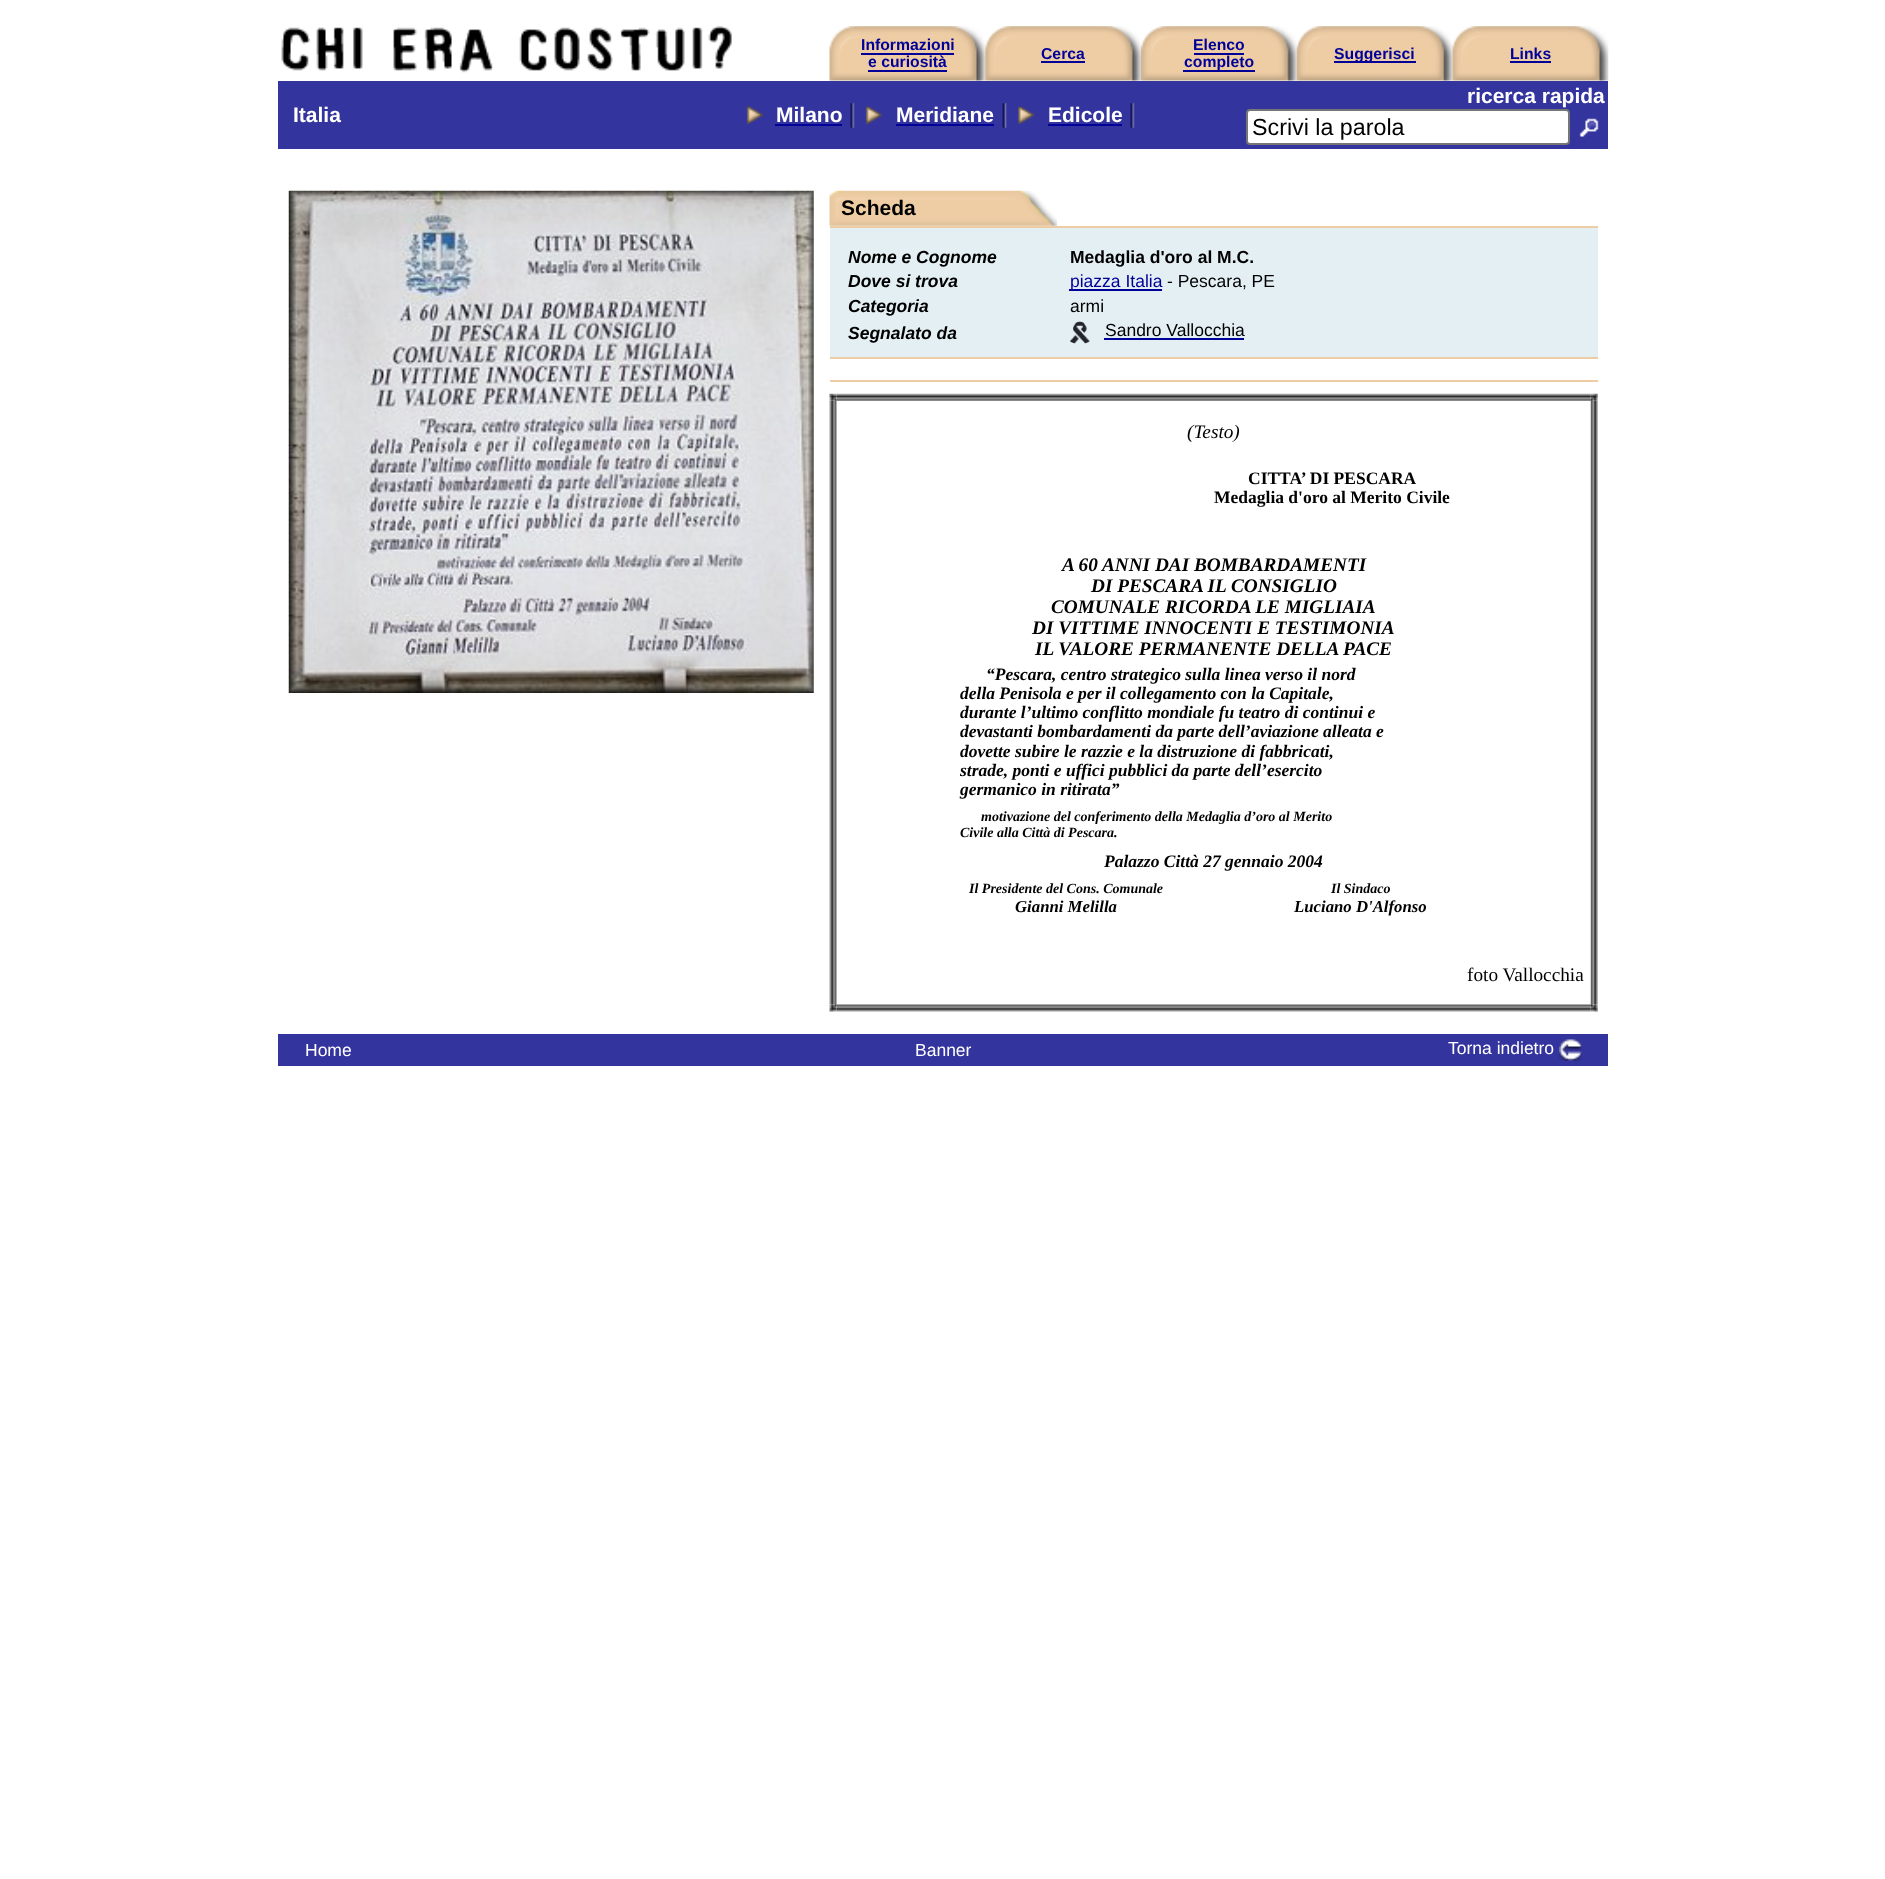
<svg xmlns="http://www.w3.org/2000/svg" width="1885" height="1879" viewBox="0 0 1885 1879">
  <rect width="100%" height="100%" fill="rgb(255,255,255)"/>
  <image x="281" y="25" width="451" height="48" href="pic1.png"/>
  <image x="829" y="26" width="157" height="55" href="pic2.png"/>
  <g font-family="Liberation Sans" font-size="15.75" font-weight="bold" fill="rgb(0,0,153)">
    <text x="861" y="50">Informazioni</text>
    <text x="868" y="67">e curiosità</text>
  </g>
  <rect x="861" y="53" width="93" height="2" fill="rgb(0,0,153)"/>
  <rect x="868" y="70" width="79" height="2" fill="rgb(0,0,153)"/>
  <image x="985" y="26" width="156" height="55" href="pic3.png"/>
  <text x="1041" y="59" font-family="Liberation Sans" font-size="15.75" font-weight="bold" fill="rgb(0,0,153)">Cerca</text>
  <rect x="1041" y="61" width="44" height="2" fill="rgb(0,0,153)"/>
  <image x="1141" y="26" width="156" height="55" href="pic4.png"/>
  <text x="1193" y="50" font-family="Liberation Sans" font-size="15.75" font-weight="bold" fill="rgb(0,0,153)">Elenco</text>
  <rect x="1183" y="70" width="72" height="2" fill="rgb(0,0,153)"/>
  <text x="1184" y="67" font-family="Liberation Sans" font-size="15.75" font-weight="bold" fill="rgb(0,0,153)">completo</text>
  <rect x="1194" y="53" width="50" height="2" fill="rgb(0,0,153)"/>
  <image x="1296" y="26" width="157" height="55" href="pic5.png"/>
  <rect x="1334" y="61" width="82" height="2" fill="rgb(0,0,153)"/>
  <text x="1334" y="59" font-family="Liberation Sans" font-size="15.75" font-weight="bold" fill="rgb(0,0,153)">Suggerisci</text>
  <image x="1452" y="26" width="157" height="55" href="pic6.png"/>
  <text x="1510" y="59" font-family="Liberation Sans" font-size="15.75" font-weight="bold" fill="rgb(0,0,153)">Links</text>
  <rect x="1510" y="61" width="41" height="2" fill="rgb(0,0,153)"/>
  <rect x="278" y="81" width="1330" height="68" fill="rgb(52,52,158)"/>
  <text x="293" y="122" font-family="Liberation Sans" font-size="21" font-weight="bold" fill="rgb(255,255,255)">Italia</text>
  <image x="746" y="106" width="18" height="19" href="pic7.png"/>
  <text x="776" y="122" font-family="Liberation Sans" font-size="21" font-weight="bold" fill="rgb(255,255,255)">Milano</text>
  <rect x="775" y="124" width="67" height="2" fill="rgb(0,0,153)"/>
  <image x="850" y="103" width="5" height="25" href="pic8.png"/>
  <image x="865" y="106" width="18" height="19" href="pic7.png"/>
  <text x="896" y="122" font-family="Liberation Sans" font-size="21" font-weight="bold" fill="rgb(255,255,255)">Meridiane</text>
  <rect x="896" y="124" width="98" height="2" fill="rgb(0,0,153)"/>
  <image x="1002" y="103" width="5" height="25" href="pic9.png"/>
  <image x="1018" y="106" width="17" height="19" href="pic10.png"/>
  <text x="1048" y="122" font-family="Liberation Sans" font-size="21" font-weight="bold" fill="rgb(255,255,255)">Edicole</text>
  <rect x="1048" y="124" width="74" height="2" fill="rgb(0,0,153)"/>
  <image x="1130" y="103" width="5" height="25" href="pic8.png"/>
  <text x="1467" y="103" font-family="Liberation Sans" font-size="21" font-weight="bold" fill="rgb(255,255,255)">ricerca rapida</text>
  <rect x="1247" y="110" width="322" height="34" rx="3" fill="rgb(255,255,255)" stroke="rgb(118,118,118)" stroke-width="2"/>
  <text x="1252" y="135" font-family="Liberation Sans" font-size="23.25" fill="rgb(0,0,0)">Scrivi la parola</text>
  <image x="1579" y="118" width="20" height="19" href="pic11.png"/>
  <image x="288" y="190" width="526" height="503" href="pic12.png"/>
  <image x="829" y="190" width="228" height="36" href="pic13.png"/>
  <text x="841" y="215" font-family="Liberation Sans" font-size="21" font-weight="bold" fill="rgb(0,0,0)">Scheda</text>
  <rect x="830" y="226" width="768" height="2" fill="rgb(238,205,164)"/>
  <rect x="830" y="228" width="768" height="129" fill="rgb(228,239,244)"/>
  <text x="848" y="263" font-family="Liberation Sans" font-size="17.5" font-weight="bold" font-style="italic" fill="rgb(0,0,0)">Nome e Cognome</text>
  <text x="1070" y="263" font-family="Liberation Sans" font-size="17.5" font-weight="bold" fill="rgb(0,0,0)">Medaglia d'oro al M.C.</text>
  <text x="848" y="287" font-family="Liberation Sans" font-size="17.5" font-weight="bold" font-style="italic" fill="rgb(0,0,0)">Dove si trova</text>
  <rect x="1069" y="289" width="93" height="2" fill="rgb(0,0,153)"/>
  <text x="1070" y="287" font-family="Liberation Sans" font-size="17.5" fill="rgb(0,0,153)">piazza Italia</text>
  <text x="1167" y="287" font-family="Liberation Sans" font-size="17.5" fill="rgb(0,0,0)">- Pescara, PE</text>
  <text x="848" y="312" font-family="Liberation Sans" font-size="17.5" font-weight="bold" font-style="italic" fill="rgb(0,0,0)">Categoria</text>
  <text x="1070" y="312" font-family="Liberation Sans" font-size="17.5" fill="rgb(0,0,0)">armi</text>
  <text x="848" y="339" font-family="Liberation Sans" font-size="17.5" font-weight="bold" font-style="italic" fill="rgb(0,0,0)">Segnalato da</text>
  <image x="1070" y="321" width="20" height="23" href="pic14.png"/>
  <text x="1105" y="336" font-family="Liberation Sans" font-size="17.5" fill="rgb(0,0,0)">Sandro Vallocchia</text>
  <rect x="1104" y="338" width="140" height="2" fill="rgb(0,0,153)"/>
  <rect x="830" y="357" width="768" height="2" fill="rgb(238,205,164)"/>
  <rect x="830" y="380" width="768" height="2" fill="rgb(238,205,164)"/>
  <image x="829" y="393" width="8" height="8" href="pic15.png"/>
  <image x="836" y="393" width="755" height="8" href="pic16.png"/>
  <image x="1590" y="393" width="8" height="8" href="pic17.png"/>
  <image x="829" y="400" width="8" height="605" href="pic18.png"/>
  <text x="1187" y="438" font-family="Liberation Serif" font-size="19.25" font-style="italic" fill="rgb(0,0,0)">(Testo)</text>
  <g font-family="Liberation Serif" font-size="17.5" font-weight="bold" fill="rgb(0,0,0)">
    <text x="1248" y="484">CITTA’ DI PESCARA</text>
    <text x="1214" y="503">Medaglia d'oro al Merito Civile</text>
  </g>
  <g font-family="Liberation Serif" font-size="19.25" font-weight="bold" font-style="italic" fill="rgb(0,0,0)">
    <text x="1062" y="571">A 60 ANNI DAI BOMBARDAMENTI</text>
    <text x="1091" y="592">DI PESCARA IL CONSIGLIO</text>
    <text x="1051" y="613">COMUNALE RICORDA LE MIGLIAIA</text>
    <text x="1032" y="634">DI VITTIME INNOCENTI E TESTIMONIA</text>
    <text x="1035" y="655">IL VALORE PERMANENTE DELLA PACE</text>
  </g>
  <g font-family="Liberation Serif" font-size="17.5" font-weight="bold" font-style="italic" fill="rgb(0,0,0)">
    <text x="986" y="680">“Pescara, centro strategico sulla linea verso il nord</text>
    <text>
      <tspan x="960" y="699">della Penisola e per il collegamento con la Capitale,</tspan>
      <tspan x="960" y="718">durante l’ultimo conflitto mondiale fu teatro di continui e</tspan>
      <tspan x="960" y="737">devastanti bombardamenti da parte dell’aviazione alleata e</tspan>
      <tspan x="960" y="757">dovette subire le razzie e la distruzione di fabbricati,</tspan>
      <tspan x="960" y="776">strade, ponti e uffici pubblici da parte dell’esercito</tspan>
      <tspan x="960" y="795">germanico in ritirata”</tspan>
    </text>
  </g>
  <g font-family="Liberation Serif" font-size="14" font-weight="bold" font-style="italic" fill="rgb(0,0,0)">
    <text x="981" y="821">motivazione del conferimento della Medaglia d’oro al Merito</text>
    <text x="960" y="837">Civile alla Città di Pescara.</text>
  </g>
  <text x="1104" y="867" font-family="Liberation Serif" font-size="17.5" font-weight="bold" font-style="italic" fill="rgb(0,0,0)">Palazzo Città 27 gennaio 2004</text>
  <text x="969" y="893" font-family="Liberation Serif" font-size="14" font-weight="bold" font-style="italic" fill="rgb(0,0,0)">Il Presidente del Cons. Comunale</text>
  <text x="1015" y="912" font-family="Liberation Serif" font-size="16.75" font-weight="bold" font-style="italic" fill="rgb(0,0,0)">Gianni Melilla</text>
  <text x="1331" y="893" font-family="Liberation Serif" font-size="14" font-weight="bold" font-style="italic" fill="rgb(0,0,0)">Il Sindaco</text>
  <text x="1294" y="912" font-family="Liberation Serif" font-size="16.75" font-weight="bold" font-style="italic" fill="rgb(0,0,0)">Luciano D'Alfonso</text>
  <text x="1467" y="981" font-family="Liberation Serif" font-size="19.25" fill="rgb(0,0,0)">foto Vallocchia</text>
  <image x="1590" y="400" width="8" height="605" href="pic19.png"/>
  <image x="829" y="1004" width="8" height="8" href="pic20.png"/>
  <image x="836" y="1004" width="755" height="8" href="pic21.png"/>
  <image x="1590" y="1004" width="8" height="8" href="pic22.png"/>
  <rect x="278" y="1034" width="1330" height="32" fill="rgb(52,52,158)"/>
  <g font-family="Liberation Sans" font-size="17.5" fill="rgb(255,255,255)">
    <text x="305" y="1056">Home</text>
    <text x="915" y="1056">Banner</text>
    <text x="1448" y="1054">Torna indietro</text>
  </g>
  <image x="1559" y="1039" width="23" height="22" href="pic23.png"/>
</svg>
